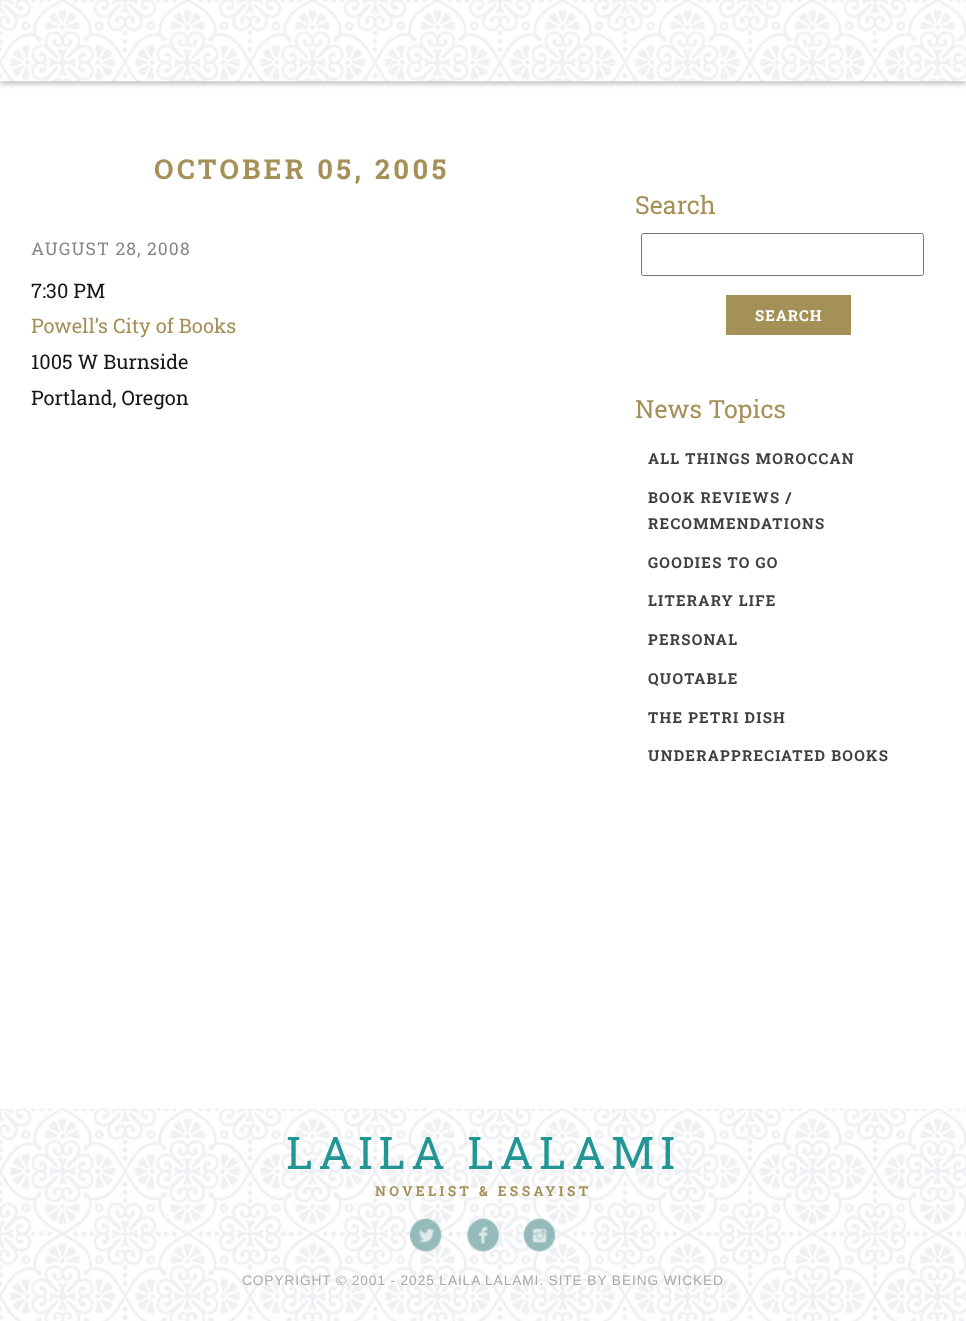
<svg xmlns="http://www.w3.org/2000/svg" width="966" height="1321" viewBox="0 0 966 1321">
  <rect width="100%" height="100%" fill="rgb(255,255,255)"/>
  <rect x="0" y="3" width="966" height="81" fill="rgba(0,0,0,0.25)" filter="blur(2.5px)"/>
  <image x="0" y="0" width="966" height="82" href="pic1.png"/>
  <text x="154" y="179" font-family="Roboto Slab" font-size="27.5" font-weight="bold" letter-spacing="3.4" fill="rgb(165,144,87)">OCTOBER 05, 2005</text>
  <text x="31" y="255" font-family="Roboto Slab" font-size="17.5" letter-spacing="1.1" fill="rgb(136,136,136)">AUGUST 28, 2008</text>
  <text x="31" y="298" font-family="Roboto Slab" font-size="20" fill="rgb(22,22,22)">7:30 PM</text>
  <text x="31" y="333" font-family="Roboto Slab" font-size="20" fill="rgb(165,144,87)">Powell’s City of Books</text>
  <g font-family="Roboto Slab" font-size="20" fill="rgb(22,22,22)">
    <text>
      <tspan x="31" y="369">1005 W Burnside</tspan>
      <tspan x="31" y="405">Portland, Oregon</tspan>
    </text>
  </g>
  <text x="635" y="214" font-family="Roboto Slab" font-size="25" fill="rgb(165,144,87)">Search</text>
  <rect x="641.5" y="233.5" width="282" height="42" rx="2" fill="none" stroke="rgb(118,118,118)"/>
  <rect x="726" y="295" width="125" height="40" fill="rgb(165,144,87)"/>
  <text x="755" y="321" font-family="Roboto Slab" font-size="15" font-weight="bold" letter-spacing="1" fill="rgb(255,255,255)">SEARCH</text>
  <text x="635" y="418" font-family="Roboto Slab" font-size="25" fill="rgb(165,144,87)">News Topics</text>
  <g font-family="Roboto Slab" font-size="15" font-weight="bold" letter-spacing="1.25" fill="rgb(64,64,64)">
    <text x="648" y="464">ALL THINGS MOROCCAN</text>
    <text>
      <tspan x="648" y="503">BOOK REVIEWS /</tspan>
      <tspan x="648" y="529">RECOMMENDATIONS</tspan>
    </text>
    <text x="648" y="568">GOODIES TO GO</text>
    <text x="648" y="606">LITERARY LIFE</text>
    <text x="648" y="645">PERSONAL</text>
    <text x="648" y="684">QUOTABLE</text>
    <text x="648" y="723">THE PETRI DISH</text>
    <text x="648" y="761">UNDERAPPRECIATED BOOKS</text>
  </g>
  <image x="0" y="1108" width="966" height="213" href="pic2.png"/>
  <text x="286" y="1169" font-family="Roboto Slab" font-size="45" letter-spacing="5.6" fill="rgb(34,150,149)">LAILA LALAMI</text>
  <text x="375" y="1196" font-family="Roboto Slab" font-size="13.75" font-weight="bold" letter-spacing="3.4" fill="rgb(165,144,87)">NOVELIST &amp; ESSAYIST</text>
  <image x="410" y="1218" width="32" height="34" href="pic3.png"/>
  <image x="467" y="1218" width="32" height="34" href="pic4.png"/>
  <image x="523" y="1218" width="33" height="34" href="pic5.png"/>
  <text x="242" y="1285" font-family="Liberation Sans" font-size="13.75" letter-spacing="0.87" fill="rgb(170,170,170)">COPYRIGHT © 2001 - 2025 LAILA LALAMI. SITE BY BEING WICKED</text>
</svg>
